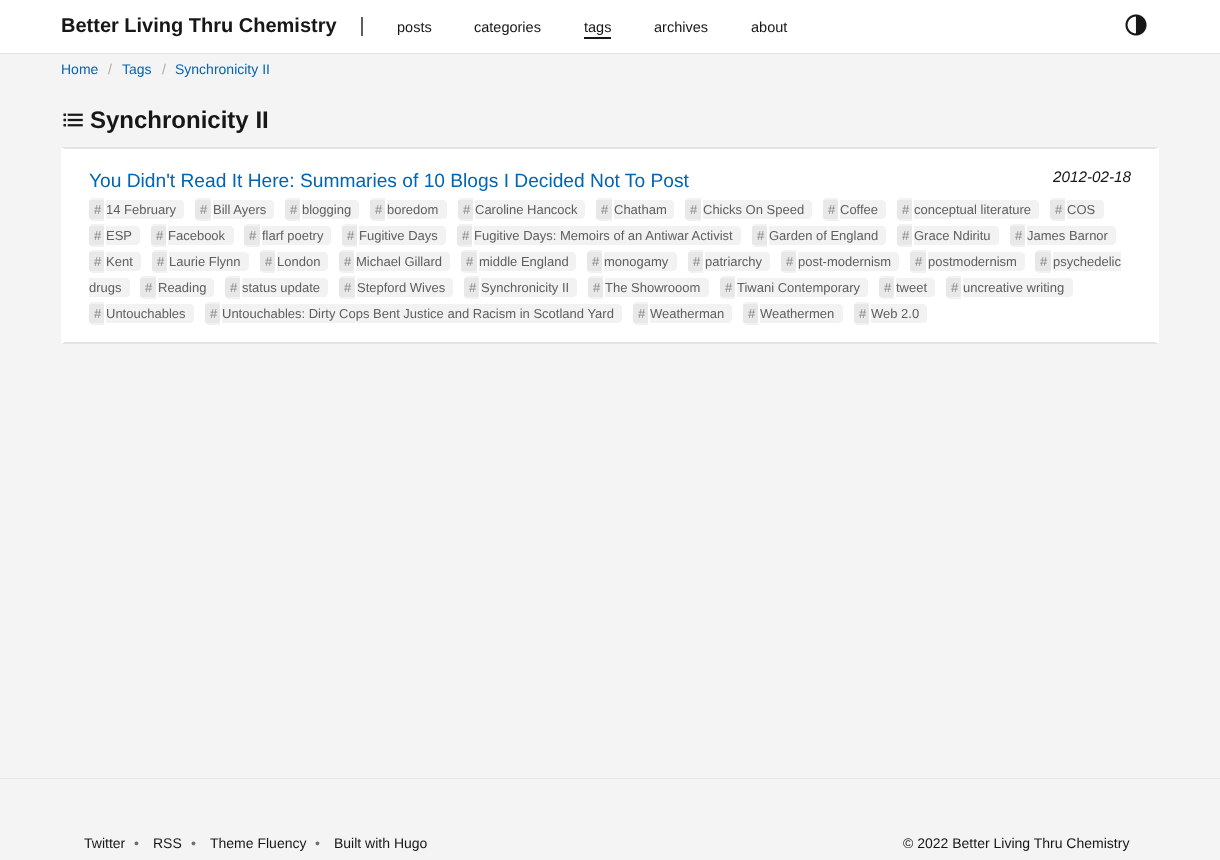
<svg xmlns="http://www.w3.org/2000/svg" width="1220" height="860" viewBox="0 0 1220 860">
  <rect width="100%" height="100%" fill="rgb(244,244,244)"/>
  <rect x="0" y="0" width="1220" height="53" fill="rgb(255,255,255)"/>
  <rect x="0" y="53" width="1220" height="1" fill="rgb(227,227,227)"/>
  <text x="61" y="32" font-family="Liberation Sans" font-size="20" font-weight="bold" fill="rgb(23,23,23)">Better Living Thru Chemistry</text>
  <rect x="361" y="17" width="2" height="19" fill="rgb(94,94,94)"/>
  <g font-family="Liberation Sans" font-size="14.5" fill="rgb(23,23,23)">
    <text x="397" y="32">posts</text>
    <text x="474" y="32">categories</text>
    <text x="584" y="32">tags</text>
  </g>
  <rect x="584" y="37" width="27" height="2" fill="rgb(23,23,23)"/>
  <g font-family="Liberation Sans" font-size="14.5" fill="rgb(23,23,23)">
    <text x="654" y="32">archives</text>
    <text x="751" y="32">about</text>
  </g>
  <image x="1125" y="14" width="22" height="22" href="pic1.png"/>
  <text x="61" y="74" font-family="Liberation Sans" font-size="14" fill="rgb(0,101,179)">Home</text>
  <text x="108" y="74" font-family="Liberation Sans" font-size="14" fill="rgb(171,171,171)">/</text>
  <text x="122" y="74" font-family="Liberation Sans" font-size="14" fill="rgb(0,101,179)">Tags</text>
  <text x="162" y="74" font-family="Liberation Sans" font-size="14" fill="rgb(171,171,171)">/</text>
  <text x="175" y="74" font-family="Liberation Sans" font-size="14" fill="rgb(0,101,179)">Synchronicity II</text>
  <image x="63" y="113" width="20" height="14" href="pic2.png"/>
  <text x="90" y="128" font-family="Liberation Sans" font-size="24" font-weight="bold" fill="rgb(23,23,23)">Synchronicity II</text>
  <rect x="61" y="147" width="1098" height="197" fill="rgb(255,255,255)"/>
  <path d="M61 147H1159L1155 149H65Z" fill="rgb(227,227,227)"/>
  <path d="M1159 344H61L65 342H1155Z" fill="rgb(227,227,227)"/>
  <text x="89" y="187" font-family="Liberation Sans" font-size="19.2" fill="rgb(0,101,179)">You Didn't Read It Here: Summaries of 10 Blogs I Decided Not To Post</text>
  <text x="1053" y="182" font-family="Liberation Sans" font-size="15.25" font-style="italic" fill="rgb(23,23,23)">2012-02-18</text>
  <path d="M93 198H104V221H93C91 221 89 219 89 217V202C89 200 91 198 93 198Z" fill="rgb(242,242,242)"/>
  <rect x="89" y="200" width="15" height="19" rx="2" fill="rgb(232,232,232)"/>
  <text x="94" y="214" font-family="Liberation Sans" font-size="13" fill="rgb(138,138,138)">#</text>
  <path d="M106 200H180C182 200 184 202 184 204V215C184 217 182 219 180 219H106Z" fill="rgb(242,242,242)"/>
  <text x="106" y="214" font-family="Liberation Sans" font-size="13" fill="rgb(94,94,94)">14 February</text>
  <path d="M199 198H211V221H199C197 221 195 219 195 217V202C195 200 197 198 199 198Z" fill="rgb(242,242,242)"/>
  <rect x="195" y="200" width="16" height="19" rx="2" fill="rgb(232,232,232)"/>
  <text x="200" y="214" font-family="Liberation Sans" font-size="13" fill="rgb(138,138,138)">#</text>
  <path d="M213 200H270C272 200 274 202 274 204V215C274 217 272 219 270 219H213Z" fill="rgb(242,242,242)"/>
  <text x="213" y="214" font-family="Liberation Sans" font-size="13" fill="rgb(94,94,94)">Bill Ayers</text>
  <path d="M289 198H300V221H289C287 221 285 219 285 217V202C285 200 287 198 289 198Z" fill="rgb(242,242,242)"/>
  <rect x="285" y="200" width="15" height="19" rx="2" fill="rgb(232,232,232)"/>
  <text x="290" y="214" font-family="Liberation Sans" font-size="13" fill="rgb(138,138,138)">#</text>
  <path d="M302 200H355C357 200 359 202 359 204V215C359 217 357 219 355 219H302Z" fill="rgb(242,242,242)"/>
  <text x="302" y="214" font-family="Liberation Sans" font-size="13" fill="rgb(94,94,94)">blogging</text>
  <path d="M374 198H385V221H374C372 221 370 219 370 217V202C370 200 372 198 374 198Z" fill="rgb(242,242,242)"/>
  <rect x="370" y="200" width="15" height="19" rx="2" fill="rgb(232,232,232)"/>
  <text x="375" y="214" font-family="Liberation Sans" font-size="13" fill="rgb(138,138,138)">#</text>
  <path d="M387 200H443C445 200 447 202 447 204V215C447 217 445 219 443 219H387Z" fill="rgb(242,242,242)"/>
  <text x="387" y="214" font-family="Liberation Sans" font-size="13" fill="rgb(94,94,94)">boredom</text>
  <path d="M462 198H473V221H462C460 221 458 219 458 217V202C458 200 460 198 462 198Z" fill="rgb(242,242,242)"/>
  <rect x="458" y="200" width="15" height="19" rx="2" fill="rgb(232,232,232)"/>
  <text x="463" y="214" font-family="Liberation Sans" font-size="13" fill="rgb(138,138,138)">#</text>
  <path d="M475 200H581C583 200 585 202 585 204V215C585 217 583 219 581 219H475Z" fill="rgb(242,242,242)"/>
  <text x="475" y="214" font-family="Liberation Sans" font-size="13" fill="rgb(94,94,94)">Caroline Hancock</text>
  <path d="M600 198H612V221H600C598 221 596 219 596 217V202C596 200 598 198 600 198Z" fill="rgb(242,242,242)"/>
  <rect x="596" y="200" width="16" height="19" rx="2" fill="rgb(232,232,232)"/>
  <text x="601" y="214" font-family="Liberation Sans" font-size="13" fill="rgb(138,138,138)">#</text>
  <path d="M614 200H670C672 200 674 202 674 204V215C674 217 672 219 670 219H614Z" fill="rgb(242,242,242)"/>
  <text x="614" y="214" font-family="Liberation Sans" font-size="13" fill="rgb(94,94,94)">Chatham</text>
  <path d="M689 198H701V221H689C687 221 685 219 685 217V202C685 200 687 198 689 198Z" fill="rgb(242,242,242)"/>
  <rect x="685" y="200" width="16" height="19" rx="2" fill="rgb(232,232,232)"/>
  <text x="690" y="214" font-family="Liberation Sans" font-size="13" fill="rgb(138,138,138)">#</text>
  <path d="M703 200H808C810 200 812 202 812 204V215C812 217 810 219 808 219H703Z" fill="rgb(242,242,242)"/>
  <text x="703" y="214" font-family="Liberation Sans" font-size="13" fill="rgb(94,94,94)">Chicks On Speed</text>
  <path d="M827 198H838V221H827C825 221 823 219 823 217V202C823 200 825 198 827 198Z" fill="rgb(242,242,242)"/>
  <rect x="823" y="200" width="15" height="19" rx="2" fill="rgb(232,232,232)"/>
  <text x="828" y="214" font-family="Liberation Sans" font-size="13" fill="rgb(138,138,138)">#</text>
  <path d="M840 200H882C884 200 886 202 886 204V215C886 217 884 219 882 219H840Z" fill="rgb(242,242,242)"/>
  <text x="840" y="214" font-family="Liberation Sans" font-size="13" fill="rgb(94,94,94)">Coffee</text>
  <path d="M901 198H912V221H901C899 221 897 219 897 217V202C897 200 899 198 901 198Z" fill="rgb(242,242,242)"/>
  <rect x="897" y="200" width="15" height="19" rx="2" fill="rgb(232,232,232)"/>
  <text x="902" y="214" font-family="Liberation Sans" font-size="13" fill="rgb(138,138,138)">#</text>
  <path d="M914 200H1035C1037 200 1039 202 1039 204V215C1039 217 1037 219 1035 219H914Z" fill="rgb(242,242,242)"/>
  <text x="914" y="214" font-family="Liberation Sans" font-size="13" fill="rgb(94,94,94)">conceptual literature</text>
  <path d="M1054 198H1065V221H1054C1052 221 1050 219 1050 217V202C1050 200 1052 198 1054 198Z" fill="rgb(242,242,242)"/>
  <rect x="1050" y="200" width="15" height="19" rx="2" fill="rgb(232,232,232)"/>
  <text x="1055" y="214" font-family="Liberation Sans" font-size="13" fill="rgb(138,138,138)">#</text>
  <path d="M1067 200H1100C1102 200 1104 202 1104 204V215C1104 217 1102 219 1100 219H1067Z" fill="rgb(242,242,242)"/>
  <text x="1067" y="214" font-family="Liberation Sans" font-size="13" fill="rgb(94,94,94)">COS</text>
  <path d="M93 224H104V247H93C91 247 89 245 89 243V228C89 226 91 224 93 224Z" fill="rgb(242,242,242)"/>
  <rect x="89" y="226" width="15" height="19" rx="2" fill="rgb(232,232,232)"/>
  <text x="94" y="240" font-family="Liberation Sans" font-size="13" fill="rgb(138,138,138)">#</text>
  <path d="M106 226H136C138 226 140 228 140 230V241C140 243 138 245 136 245H106Z" fill="rgb(242,242,242)"/>
  <text x="106" y="240" font-family="Liberation Sans" font-size="13" fill="rgb(94,94,94)">ESP</text>
  <path d="M155 224H166V247H155C153 247 151 245 151 243V228C151 226 153 224 155 224Z" fill="rgb(242,242,242)"/>
  <rect x="151" y="226" width="15" height="19" rx="2" fill="rgb(232,232,232)"/>
  <text x="156" y="240" font-family="Liberation Sans" font-size="13" fill="rgb(138,138,138)">#</text>
  <path d="M168 226H230C232 226 234 228 234 230V241C234 243 232 245 230 245H168Z" fill="rgb(242,242,242)"/>
  <text x="168" y="240" font-family="Liberation Sans" font-size="13" fill="rgb(94,94,94)">Facebook</text>
  <path d="M248 224H260V247H248C246 247 244 245 244 243V228C244 226 246 224 248 224Z" fill="rgb(242,242,242)"/>
  <rect x="244" y="226" width="16" height="19" rx="2" fill="rgb(232,232,232)"/>
  <text x="249" y="240" font-family="Liberation Sans" font-size="13" fill="rgb(138,138,138)">#</text>
  <path d="M262 226H327C329 226 331 228 331 230V241C331 243 329 245 327 245H262Z" fill="rgb(242,242,242)"/>
  <text x="262" y="240" font-family="Liberation Sans" font-size="13" fill="rgb(94,94,94)">flarf poetry</text>
  <path d="M346 224H357V247H346C344 247 342 245 342 243V228C342 226 344 224 346 224Z" fill="rgb(242,242,242)"/>
  <rect x="342" y="226" width="15" height="19" rx="2" fill="rgb(232,232,232)"/>
  <text x="347" y="240" font-family="Liberation Sans" font-size="13" fill="rgb(138,138,138)">#</text>
  <path d="M359 226H442C444 226 446 228 446 230V241C446 243 444 245 442 245H359Z" fill="rgb(242,242,242)"/>
  <text x="359" y="240" font-family="Liberation Sans" font-size="13" fill="rgb(94,94,94)">Fugitive Days</text>
  <path d="M461 224H472V247H461C459 247 457 245 457 243V228C457 226 459 224 461 224Z" fill="rgb(242,242,242)"/>
  <rect x="457" y="226" width="15" height="19" rx="2" fill="rgb(232,232,232)"/>
  <text x="462" y="240" font-family="Liberation Sans" font-size="13" fill="rgb(138,138,138)">#</text>
  <path d="M474 226H737C739 226 741 228 741 230V241C741 243 739 245 737 245H474Z" fill="rgb(242,242,242)"/>
  <text x="474" y="240" font-family="Liberation Sans" font-size="13" fill="rgb(94,94,94)">Fugitive Days: Memoirs of an Antiwar Activist</text>
  <path d="M756 224H767V247H756C754 247 752 245 752 243V228C752 226 754 224 756 224Z" fill="rgb(242,242,242)"/>
  <rect x="752" y="226" width="15" height="19" rx="2" fill="rgb(232,232,232)"/>
  <text x="757" y="240" font-family="Liberation Sans" font-size="13" fill="rgb(138,138,138)">#</text>
  <path d="M769 226H882C884 226 886 228 886 230V241C886 243 884 245 882 245H769Z" fill="rgb(242,242,242)"/>
  <text x="769" y="240" font-family="Liberation Sans" font-size="13" fill="rgb(94,94,94)">Garden of England</text>
  <path d="M901 224H912V247H901C899 247 897 245 897 243V228C897 226 899 224 901 224Z" fill="rgb(242,242,242)"/>
  <rect x="897" y="226" width="15" height="19" rx="2" fill="rgb(232,232,232)"/>
  <text x="902" y="240" font-family="Liberation Sans" font-size="13" fill="rgb(138,138,138)">#</text>
  <path d="M914 226H995C997 226 999 228 999 230V241C999 243 997 245 995 245H914Z" fill="rgb(242,242,242)"/>
  <text x="914" y="240" font-family="Liberation Sans" font-size="13" fill="rgb(94,94,94)">Grace Ndiritu</text>
  <path d="M1014 224H1025V247H1014C1012 247 1010 245 1010 243V228C1010 226 1012 224 1014 224Z" fill="rgb(242,242,242)"/>
  <rect x="1010" y="226" width="15" height="19" rx="2" fill="rgb(232,232,232)"/>
  <text x="1015" y="240" font-family="Liberation Sans" font-size="13" fill="rgb(138,138,138)">#</text>
  <path d="M1027 226H1112C1114 226 1116 228 1116 230V241C1116 243 1114 245 1112 245H1027Z" fill="rgb(242,242,242)"/>
  <text x="1027" y="240" font-family="Liberation Sans" font-size="13" fill="rgb(94,94,94)">James Barnor</text>
  <path d="M93 250H104V273H93C91 273 89 271 89 269V254C89 252 91 250 93 250Z" fill="rgb(242,242,242)"/>
  <rect x="89" y="252" width="15" height="19" rx="2" fill="rgb(232,232,232)"/>
  <text x="94" y="266" font-family="Liberation Sans" font-size="13" fill="rgb(138,138,138)">#</text>
  <path d="M106 252H137C139 252 141 254 141 256V267C141 269 139 271 137 271H106Z" fill="rgb(242,242,242)"/>
  <text x="106" y="266" font-family="Liberation Sans" font-size="13" fill="rgb(94,94,94)">Kent</text>
  <path d="M156 250H167V273H156C154 273 152 271 152 269V254C152 252 154 250 156 250Z" fill="rgb(242,242,242)"/>
  <rect x="152" y="252" width="15" height="19" rx="2" fill="rgb(232,232,232)"/>
  <text x="157" y="266" font-family="Liberation Sans" font-size="13" fill="rgb(138,138,138)">#</text>
  <path d="M169 252H245C247 252 249 254 249 256V267C249 269 247 271 245 271H169Z" fill="rgb(242,242,242)"/>
  <text x="169" y="266" font-family="Liberation Sans" font-size="13" fill="rgb(94,94,94)">Laurie Flynn</text>
  <path d="M264 250H275V273H264C262 273 260 271 260 269V254C260 252 262 250 264 250Z" fill="rgb(242,242,242)"/>
  <rect x="260" y="252" width="15" height="19" rx="2" fill="rgb(232,232,232)"/>
  <text x="265" y="266" font-family="Liberation Sans" font-size="13" fill="rgb(138,138,138)">#</text>
  <path d="M277 252H324C326 252 328 254 328 256V267C328 269 326 271 324 271H277Z" fill="rgb(242,242,242)"/>
  <text x="277" y="266" font-family="Liberation Sans" font-size="13" fill="rgb(94,94,94)">London</text>
  <path d="M343 250H354V273H343C341 273 339 271 339 269V254C339 252 341 250 343 250Z" fill="rgb(242,242,242)"/>
  <rect x="339" y="252" width="15" height="19" rx="2" fill="rgb(232,232,232)"/>
  <text x="344" y="266" font-family="Liberation Sans" font-size="13" fill="rgb(138,138,138)">#</text>
  <path d="M356 252H446C448 252 450 254 450 256V267C450 269 448 271 446 271H356Z" fill="rgb(242,242,242)"/>
  <text x="356" y="266" font-family="Liberation Sans" font-size="13" fill="rgb(94,94,94)">Michael Gillard</text>
  <path d="M465 250H477V273H465C463 273 461 271 461 269V254C461 252 463 250 465 250Z" fill="rgb(242,242,242)"/>
  <rect x="461" y="252" width="16" height="19" rx="2" fill="rgb(232,232,232)"/>
  <text x="466" y="266" font-family="Liberation Sans" font-size="13" fill="rgb(138,138,138)">#</text>
  <path d="M479 252H572C574 252 576 254 576 256V267C576 269 574 271 572 271H479Z" fill="rgb(242,242,242)"/>
  <text x="479" y="266" font-family="Liberation Sans" font-size="13" fill="rgb(94,94,94)">middle England</text>
  <path d="M591 250H602V273H591C589 273 587 271 587 269V254C587 252 589 250 591 250Z" fill="rgb(242,242,242)"/>
  <rect x="587" y="252" width="15" height="19" rx="2" fill="rgb(232,232,232)"/>
  <text x="592" y="266" font-family="Liberation Sans" font-size="13" fill="rgb(138,138,138)">#</text>
  <path d="M604 252H673C675 252 677 254 677 256V267C677 269 675 271 673 271H604Z" fill="rgb(242,242,242)"/>
  <text x="604" y="266" font-family="Liberation Sans" font-size="13" fill="rgb(94,94,94)">monogamy</text>
  <path d="M692 250H703V273H692C690 273 688 271 688 269V254C688 252 690 250 692 250Z" fill="rgb(242,242,242)"/>
  <rect x="688" y="252" width="15" height="19" rx="2" fill="rgb(232,232,232)"/>
  <text x="693" y="266" font-family="Liberation Sans" font-size="13" fill="rgb(138,138,138)">#</text>
  <path d="M705 252H766C768 252 770 254 770 256V267C770 269 768 271 766 271H705Z" fill="rgb(242,242,242)"/>
  <text x="705" y="266" font-family="Liberation Sans" font-size="13" fill="rgb(94,94,94)">patriarchy</text>
  <path d="M785 250H796V273H785C783 273 781 271 781 269V254C781 252 783 250 785 250Z" fill="rgb(242,242,242)"/>
  <rect x="781" y="252" width="15" height="19" rx="2" fill="rgb(232,232,232)"/>
  <text x="786" y="266" font-family="Liberation Sans" font-size="13" fill="rgb(138,138,138)">#</text>
  <path d="M798 252H895C897 252 899 254 899 256V267C899 269 897 271 895 271H798Z" fill="rgb(242,242,242)"/>
  <text x="798" y="266" font-family="Liberation Sans" font-size="13" fill="rgb(94,94,94)">post-modernism</text>
  <path d="M914 250H926V273H914C912 273 910 271 910 269V254C910 252 912 250 914 250Z" fill="rgb(242,242,242)"/>
  <rect x="910" y="252" width="16" height="19" rx="2" fill="rgb(232,232,232)"/>
  <text x="915" y="266" font-family="Liberation Sans" font-size="13" fill="rgb(138,138,138)">#</text>
  <path d="M928 252H1021C1023 252 1025 254 1025 256V267C1025 269 1023 271 1021 271H928Z" fill="rgb(242,242,242)"/>
  <text x="928" y="266" font-family="Liberation Sans" font-size="13" fill="rgb(94,94,94)">postmodernism</text>
  <path d="M1039 250H1051V273H1039C1037 273 1035 271 1035 269V254C1035 252 1037 250 1039 250Z" fill="rgb(242,242,242)"/>
  <rect x="1035" y="252" width="16" height="19" rx="2" fill="rgb(232,232,232)"/>
  <text x="1040" y="266" font-family="Liberation Sans" font-size="13" fill="rgb(138,138,138)">#</text>
  <rect x="1053" y="252" width="68" height="19" fill="rgb(242,242,242)"/>
  <text x="1053" y="266" font-family="Liberation Sans" font-size="13" fill="rgb(94,94,94)">psychedelic</text>
  <path d="M89 278H126C128 278 130 280 130 282V293C130 295 128 297 126 297H89Z" fill="rgb(242,242,242)"/>
  <text x="89" y="292" font-family="Liberation Sans" font-size="13" fill="rgb(94,94,94)">drugs</text>
  <path d="M144 276H156V299H144C142 299 140 297 140 295V280C140 278 142 276 144 276Z" fill="rgb(242,242,242)"/>
  <rect x="140" y="278" width="16" height="19" rx="2" fill="rgb(232,232,232)"/>
  <text x="145" y="292" font-family="Liberation Sans" font-size="13" fill="rgb(138,138,138)">#</text>
  <path d="M158 278H210C212 278 214 280 214 282V293C214 295 212 297 210 297H158Z" fill="rgb(242,242,242)"/>
  <text x="158" y="292" font-family="Liberation Sans" font-size="13" fill="rgb(94,94,94)">Reading</text>
  <path d="M229 276H240V299H229C227 299 225 297 225 295V280C225 278 227 276 229 276Z" fill="rgb(242,242,242)"/>
  <rect x="225" y="278" width="15" height="19" rx="2" fill="rgb(232,232,232)"/>
  <text x="230" y="292" font-family="Liberation Sans" font-size="13" fill="rgb(138,138,138)">#</text>
  <path d="M242 278H324C326 278 328 280 328 282V293C328 295 326 297 324 297H242Z" fill="rgb(242,242,242)"/>
  <text x="242" y="292" font-family="Liberation Sans" font-size="13" fill="rgb(94,94,94)">status update</text>
  <path d="M343 276H355V299H343C341 299 339 297 339 295V280C339 278 341 276 343 276Z" fill="rgb(242,242,242)"/>
  <rect x="339" y="278" width="16" height="19" rx="2" fill="rgb(232,232,232)"/>
  <text x="344" y="292" font-family="Liberation Sans" font-size="13" fill="rgb(138,138,138)">#</text>
  <path d="M357 278H449C451 278 453 280 453 282V293C453 295 451 297 449 297H357Z" fill="rgb(242,242,242)"/>
  <text x="357" y="292" font-family="Liberation Sans" font-size="13" fill="rgb(94,94,94)">Stepford Wives</text>
  <path d="M468 276H479V299H468C466 299 464 297 464 295V280C464 278 466 276 468 276Z" fill="rgb(242,242,242)"/>
  <rect x="464" y="278" width="15" height="19" rx="2" fill="rgb(232,232,232)"/>
  <text x="469" y="292" font-family="Liberation Sans" font-size="13" fill="rgb(138,138,138)">#</text>
  <path d="M481 278H573C575 278 577 280 577 282V293C577 295 575 297 573 297H481Z" fill="rgb(242,242,242)"/>
  <text x="481" y="292" font-family="Liberation Sans" font-size="13" fill="rgb(94,94,94)">Synchronicity II</text>
  <path d="M592 276H603V299H592C590 299 588 297 588 295V280C588 278 590 276 592 276Z" fill="rgb(242,242,242)"/>
  <rect x="588" y="278" width="15" height="19" rx="2" fill="rgb(232,232,232)"/>
  <text x="593" y="292" font-family="Liberation Sans" font-size="13" fill="rgb(138,138,138)">#</text>
  <path d="M605 278H705C707 278 709 280 709 282V293C709 295 707 297 705 297H605Z" fill="rgb(242,242,242)"/>
  <text x="605" y="292" font-family="Liberation Sans" font-size="13" fill="rgb(94,94,94)">The Showrooom</text>
  <path d="M724 276H735V299H724C722 299 720 297 720 295V280C720 278 722 276 724 276Z" fill="rgb(242,242,242)"/>
  <rect x="720" y="278" width="15" height="19" rx="2" fill="rgb(232,232,232)"/>
  <text x="725" y="292" font-family="Liberation Sans" font-size="13" fill="rgb(138,138,138)">#</text>
  <path d="M737 278H864C866 278 868 280 868 282V293C868 295 866 297 864 297H737Z" fill="rgb(242,242,242)"/>
  <text x="737" y="292" font-family="Liberation Sans" font-size="13" fill="rgb(94,94,94)">Tiwani Contemporary</text>
  <path d="M883 276H894V299H883C881 299 879 297 879 295V280C879 278 881 276 883 276Z" fill="rgb(242,242,242)"/>
  <rect x="879" y="278" width="15" height="19" rx="2" fill="rgb(232,232,232)"/>
  <text x="884" y="292" font-family="Liberation Sans" font-size="13" fill="rgb(138,138,138)">#</text>
  <path d="M896 278H931C933 278 935 280 935 282V293C935 295 933 297 931 297H896Z" fill="rgb(242,242,242)"/>
  <text x="896" y="292" font-family="Liberation Sans" font-size="13" fill="rgb(94,94,94)">tweet</text>
  <path d="M950 276H961V299H950C948 299 946 297 946 295V280C946 278 948 276 950 276Z" fill="rgb(242,242,242)"/>
  <rect x="946" y="278" width="15" height="19" rx="2" fill="rgb(232,232,232)"/>
  <text x="951" y="292" font-family="Liberation Sans" font-size="13" fill="rgb(138,138,138)">#</text>
  <path d="M963 278H1069C1071 278 1073 280 1073 282V293C1073 295 1071 297 1069 297H963Z" fill="rgb(242,242,242)"/>
  <text x="963" y="292" font-family="Liberation Sans" font-size="13" fill="rgb(94,94,94)">uncreative writing</text>
  <path d="M93 302H104V325H93C91 325 89 323 89 321V306C89 304 91 302 93 302Z" fill="rgb(242,242,242)"/>
  <rect x="89" y="304" width="15" height="19" rx="2" fill="rgb(232,232,232)"/>
  <text x="94" y="318" font-family="Liberation Sans" font-size="13" fill="rgb(138,138,138)">#</text>
  <path d="M106 304H190C192 304 194 306 194 308V319C194 321 192 323 190 323H106Z" fill="rgb(242,242,242)"/>
  <text x="106" y="318" font-family="Liberation Sans" font-size="13" fill="rgb(94,94,94)">Untouchables</text>
  <path d="M209 302H220V325H209C207 325 205 323 205 321V306C205 304 207 302 209 302Z" fill="rgb(242,242,242)"/>
  <rect x="205" y="304" width="15" height="19" rx="2" fill="rgb(232,232,232)"/>
  <text x="210" y="318" font-family="Liberation Sans" font-size="13" fill="rgb(138,138,138)">#</text>
  <path d="M222 304H618C620 304 622 306 622 308V319C622 321 620 323 618 323H222Z" fill="rgb(242,242,242)"/>
  <text x="222" y="318" font-family="Liberation Sans" font-size="13" fill="rgb(94,94,94)">Untouchables: Dirty Cops Bent Justice and Racism in Scotland Yard</text>
  <path d="M637 302H648V325H637C635 325 633 323 633 321V306C633 304 635 302 637 302Z" fill="rgb(242,242,242)"/>
  <rect x="633" y="304" width="15" height="19" rx="2" fill="rgb(232,232,232)"/>
  <text x="638" y="318" font-family="Liberation Sans" font-size="13" fill="rgb(138,138,138)">#</text>
  <path d="M650 304H728C730 304 732 306 732 308V319C732 321 730 323 728 323H650Z" fill="rgb(242,242,242)"/>
  <text x="650" y="318" font-family="Liberation Sans" font-size="13" fill="rgb(94,94,94)">Weatherman</text>
  <path d="M747 302H758V325H747C745 325 743 323 743 321V306C743 304 745 302 747 302Z" fill="rgb(242,242,242)"/>
  <rect x="743" y="304" width="15" height="19" rx="2" fill="rgb(232,232,232)"/>
  <text x="748" y="318" font-family="Liberation Sans" font-size="13" fill="rgb(138,138,138)">#</text>
  <path d="M760 304H839C841 304 843 306 843 308V319C843 321 841 323 839 323H760Z" fill="rgb(242,242,242)"/>
  <text x="760" y="318" font-family="Liberation Sans" font-size="13" fill="rgb(94,94,94)">Weathermen</text>
  <path d="M858 302H869V325H858C856 325 854 323 854 321V306C854 304 856 302 858 302Z" fill="rgb(242,242,242)"/>
  <rect x="854" y="304" width="15" height="19" rx="2" fill="rgb(232,232,232)"/>
  <text x="859" y="318" font-family="Liberation Sans" font-size="13" fill="rgb(138,138,138)">#</text>
  <path d="M871 304H923C925 304 927 306 927 308V319C927 321 925 323 923 323H871Z" fill="rgb(242,242,242)"/>
  <text x="871" y="318" font-family="Liberation Sans" font-size="13" fill="rgb(94,94,94)">Web 2.0</text>
  <rect x="0" y="778" width="1220" height="1" fill="rgb(230,230,230)"/>
  <text x="84" y="848" font-family="Liberation Sans" font-size="14" fill="rgb(23,23,23)">Twitter</text>
  <text x="134" y="848" font-family="Liberation Sans" font-size="14" fill="rgb(111,111,111)">•</text>
  <text x="153" y="848" font-family="Liberation Sans" font-size="14" fill="rgb(23,23,23)">RSS</text>
  <text x="191" y="848" font-family="Liberation Sans" font-size="14" fill="rgb(111,111,111)">•</text>
  <text x="210" y="848" font-family="Liberation Sans" font-size="14" fill="rgb(23,23,23)">Theme Fluency</text>
  <text x="315" y="848" font-family="Liberation Sans" font-size="14" fill="rgb(111,111,111)">•</text>
  <g font-family="Liberation Sans" font-size="14" fill="rgb(23,23,23)">
    <text x="334" y="848">Built with Hugo</text>
    <text x="903" y="848">© 2022 Better Living Thru Chemistry</text>
  </g>
</svg>
